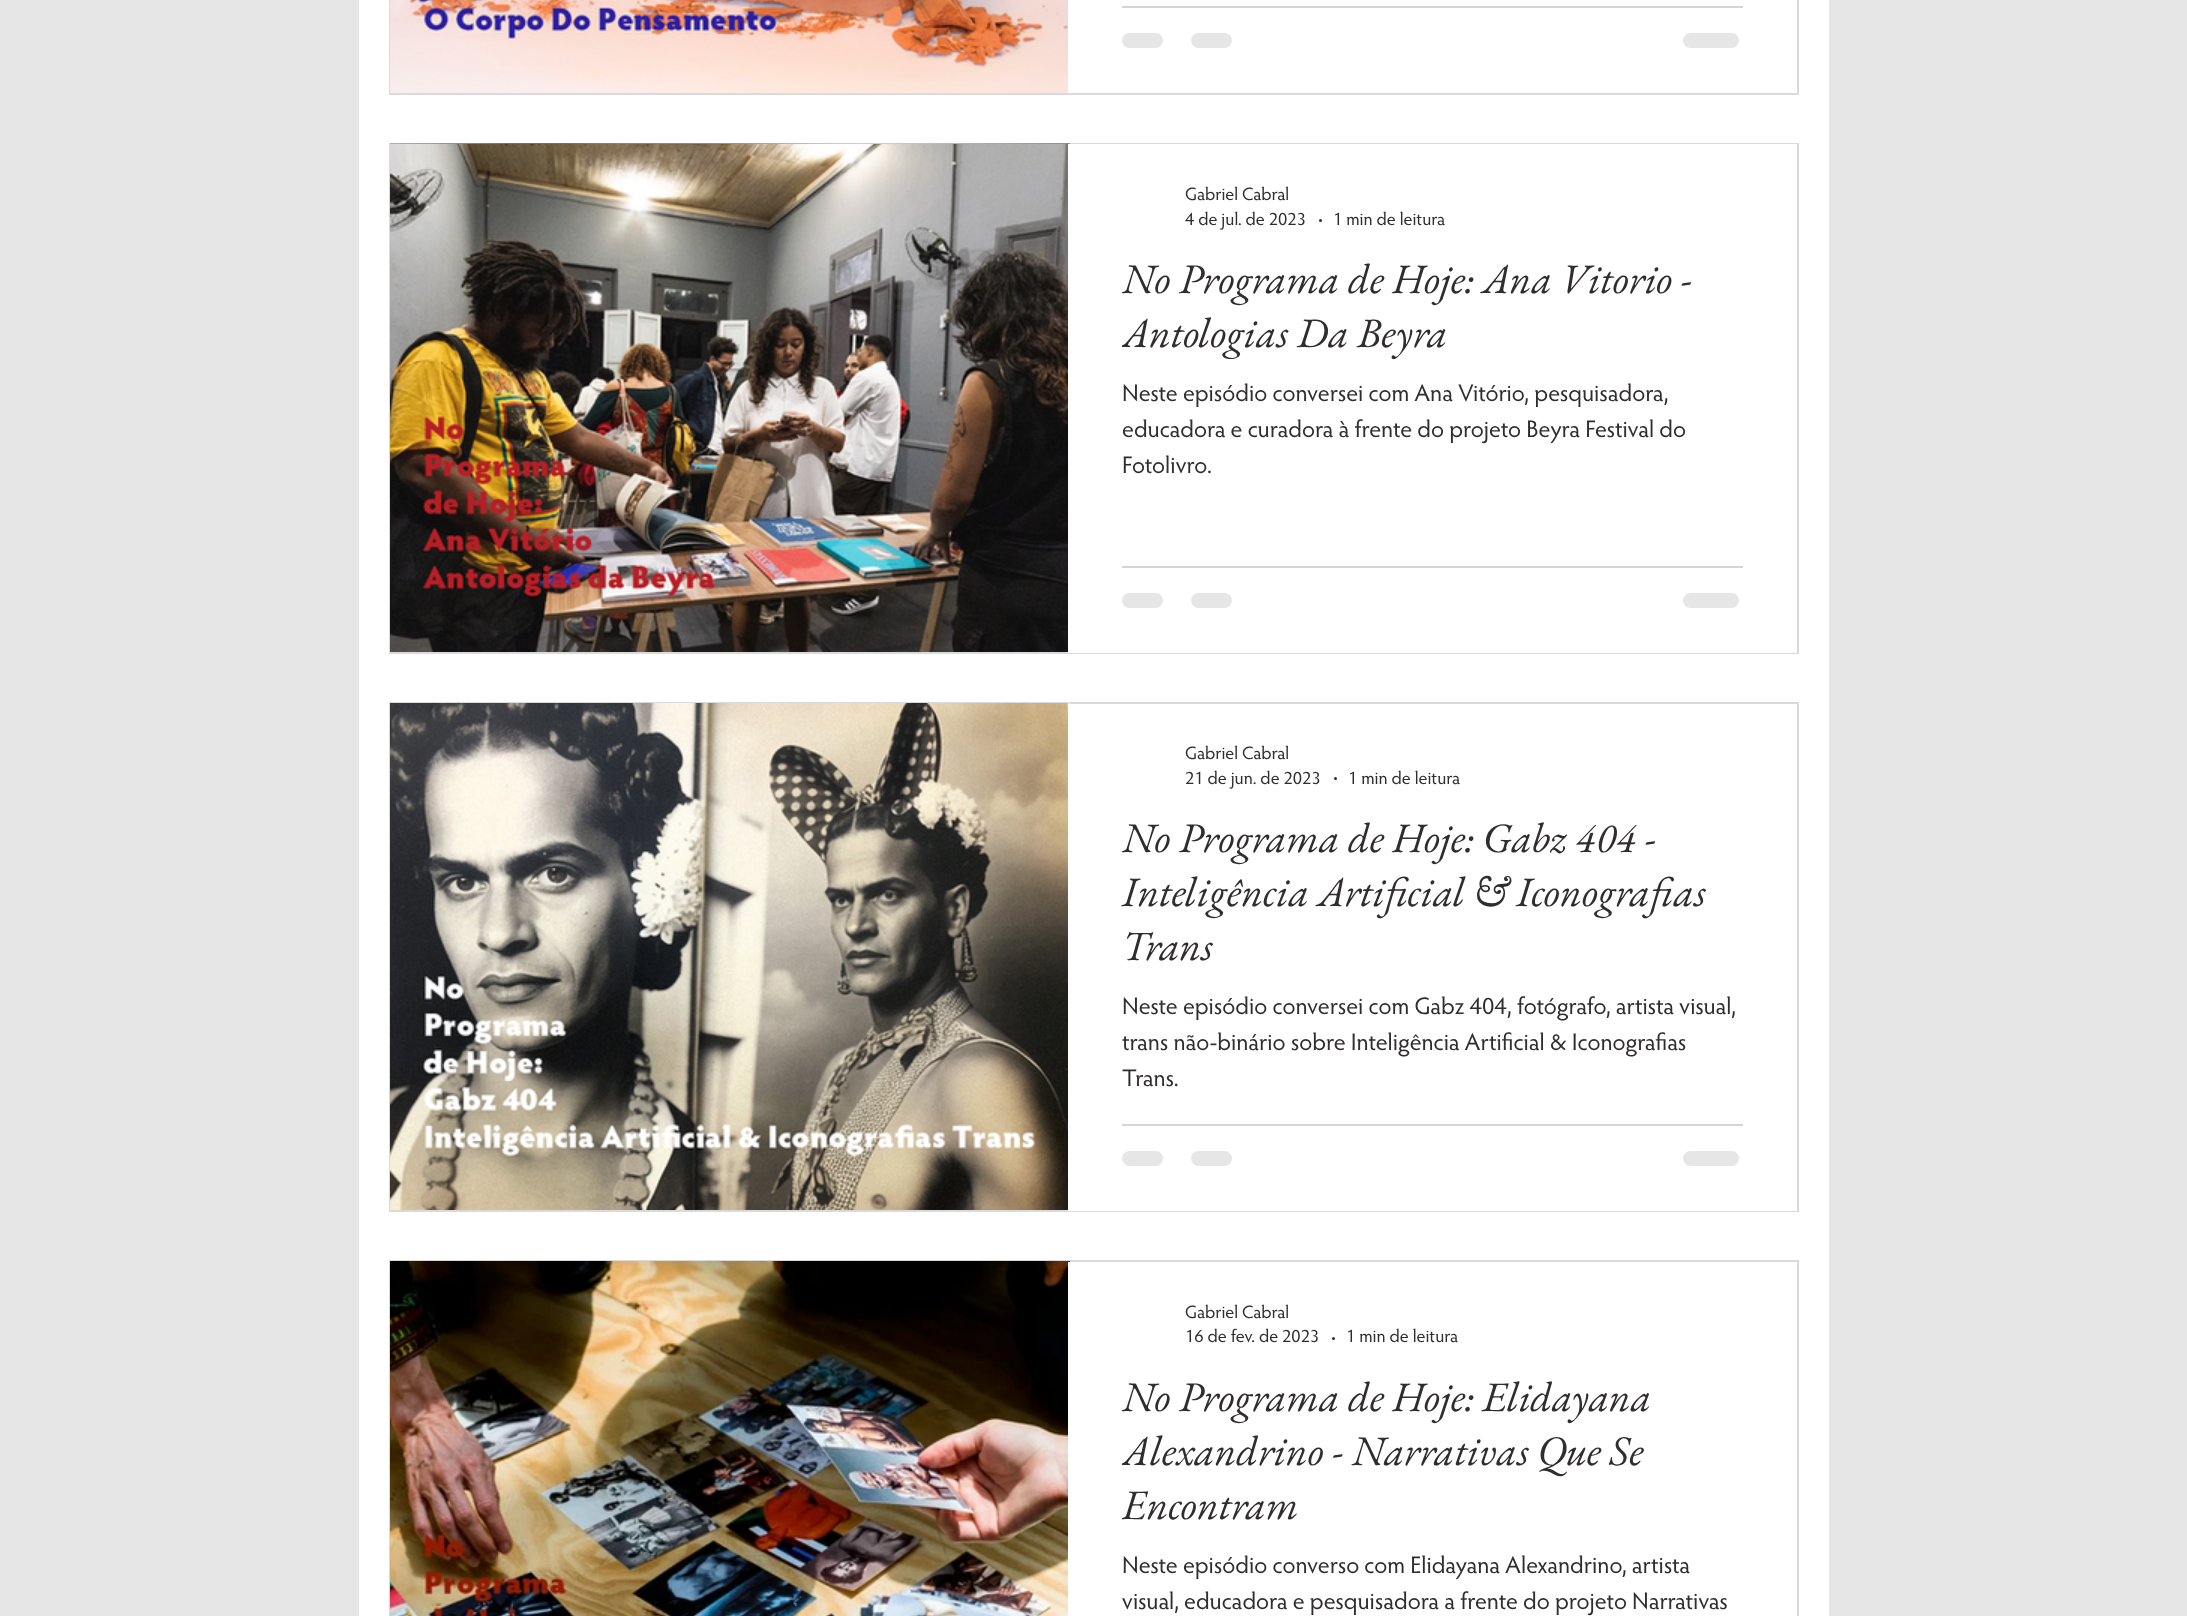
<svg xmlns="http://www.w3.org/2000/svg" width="2187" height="1616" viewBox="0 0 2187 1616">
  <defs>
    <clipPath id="clip1"><rect x="1122" y="251" width="621" height="108"/></clipPath>
    <clipPath id="clip2"><rect x="1122" y="1368" width="621" height="162"/></clipPath>
  </defs>
  <rect width="100%" height="100%" fill="rgb(230,230,230)"/>
  <rect x="359" y="0" width="1470" height="1616" fill="rgb(255,255,255)"/>
  <rect x="390" y="-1" width="1408" height="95" fill="none" stroke="rgb(218,218,218)" stroke-width="2"/>
  <image x="390" y="0" width="678" height="93" href="pic1.png"/>
  <rect x="1122" y="6" width="621" height="2" fill="rgb(214,213,213)"/>
  <rect x="1122" y="33" width="41" height="15" rx="7.5" fill="rgb(230,230,230)"/>
  <rect x="1191" y="33" width="41" height="15" rx="7.5" fill="rgb(230,230,230)"/>
  <rect x="1683" y="33" width="56" height="15" rx="7.5" fill="rgb(230,230,230)"/>
  <rect x="390" y="144" width="1408" height="509" fill="none" stroke="rgb(218,218,218)" stroke-width="2"/>
  <image x="390" y="143" width="680" height="1" href="pic2.png"/>
  <image x="390" y="144" width="678" height="508" href="pic3.png"/>
  <rect x="1068" y="144" width="729" height="509" fill="rgb(255,255,255)"/>
  <g font-family="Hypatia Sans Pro" font-size="18" fill="rgb(48,45,45)">
    <text>
      <tspan x="1185" y="200">Gabriel Cabral</tspan>
      <tspan x="1185" y="225">4 de jul. de 2023</tspan>
    </text>
  </g>
  <circle cx="1320.5" cy="220.5" r="1.5" fill="rgb(48,45,45)"/>
  <text x="1333" y="225" font-family="Hypatia Sans Pro" font-size="18" fill="rgb(48,45,45)">1 min de leitura</text>
  <text x="1122" y="293" font-family="EB Garamond" font-size="42" font-style="italic" fill="rgb(48,45,45)">No Programa de Hoje: Ana Vitorio -</text>
  <g clip-path="url(#clip1)">
    <text x="1122" y="347" font-family="EB Garamond" font-size="42" font-style="italic" fill="rgb(48,45,45)">Antologias Da Beyra</text>
  </g>
  <g font-family="Hypatia Sans Pro" font-size="24" fill="rgb(48,45,45)">
    <text>
      <tspan x="1122" y="401">Neste episódio conversei com Ana Vitório, pesquisadora,</tspan>
      <tspan x="1122" y="437">educadora e curadora à frente do projeto Beyra Festival do</tspan>
      <tspan x="1122" y="473">Fotolivro.</tspan>
    </text>
  </g>
  <rect x="1122" y="566" width="621" height="2" fill="rgb(214,213,213)"/>
  <rect x="1122" y="593" width="41" height="15" rx="7.5" fill="rgb(230,230,230)"/>
  <rect x="1191" y="593" width="41" height="15" rx="7.5" fill="rgb(230,230,230)"/>
  <rect x="1683" y="593" width="56" height="15" rx="7.5" fill="rgb(230,230,230)"/>
  <rect x="390" y="703" width="1408" height="508" fill="none" stroke="rgb(218,218,218)" stroke-width="2"/>
  <image x="390" y="703" width="680" height="507" href="pic4.png"/>
  <rect x="1068" y="704" width="729" height="507" fill="rgb(255,255,255)"/>
  <g font-family="Hypatia Sans Pro" font-size="18" fill="rgb(48,45,45)">
    <text>
      <tspan x="1185" y="759">Gabriel Cabral</tspan>
      <tspan x="1185" y="784">21 de jun. de 2023</tspan>
    </text>
  </g>
  <circle cx="1335.5" cy="778.5" r="1.5" fill="rgb(48,45,45)"/>
  <text x="1348" y="784" font-family="Hypatia Sans Pro" font-size="18" fill="rgb(48,45,45)">1 min de leitura</text>
  <g font-family="EB Garamond" font-size="42" font-style="italic" fill="rgb(48,45,45)">
    <text>
      <tspan x="1122" y="852">No Programa de Hoje: Gabz 404 -</tspan>
      <tspan x="1122" y="906">Inteligência Artificial &amp; Iconografias</tspan>
      <tspan x="1122" y="960">Trans</tspan>
    </text>
  </g>
  <g font-family="Hypatia Sans Pro" font-size="24" fill="rgb(48,45,45)">
    <text>
      <tspan x="1122" y="1014">Neste episódio conversei com Gabz 404, fotógrafo, artista visual,</tspan>
      <tspan x="1122" y="1050">trans não-binário sobre Inteligência Artificial &amp; Iconografias</tspan>
      <tspan x="1122" y="1086">Trans.</tspan>
    </text>
  </g>
  <rect x="1122" y="1124" width="621" height="2" fill="rgb(214,213,213)"/>
  <rect x="1122" y="1151" width="41" height="15" rx="7.5" fill="rgb(230,230,230)"/>
  <rect x="1191" y="1151" width="41" height="15" rx="7.5" fill="rgb(230,230,230)"/>
  <rect x="1683" y="1151" width="56" height="15" rx="7.5" fill="rgb(230,230,230)"/>
  <rect x="390" y="1261" width="1408" height="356" fill="none" stroke="rgb(218,218,218)" stroke-width="2"/>
  <image x="390" y="1261" width="680" height="355" href="pic5.png"/>
  <rect x="1068" y="1262" width="2" height="354" fill="rgb(255,255,255)"/>
  <g font-family="Hypatia Sans Pro" font-size="18" fill="rgb(48,45,45)">
    <text>
      <tspan x="1185" y="1318">Gabriel Cabral</tspan>
      <tspan x="1185" y="1342">16 de fev. de 2023</tspan>
    </text>
  </g>
  <circle cx="1333.5" cy="1338.5" r="1.5" fill="rgb(48,45,45)"/>
  <text x="1346" y="1342" font-family="Hypatia Sans Pro" font-size="18" fill="rgb(48,45,45)">1 min de leitura</text>
  <text x="1122" y="1411" font-family="EB Garamond" font-size="42" font-style="italic" fill="rgb(48,45,45)">No Programa de Hoje: Elidayana</text>
  <g clip-path="url(#clip2)">
    <g font-family="EB Garamond" font-size="42" font-style="italic" fill="rgb(48,45,45)">
      <text>
        <tspan x="1122" y="1465">Alexandrino - Narrativas Que Se</tspan>
        <tspan x="1122" y="1519">Encontram</tspan>
      </text>
    </g>
  </g>
  <g font-family="Hypatia Sans Pro" font-size="24" fill="rgb(48,45,45)">
    <text>
      <tspan x="1122" y="1573">Neste episódio converso com Elidayana Alexandrino, artista</tspan>
      <tspan x="1122" y="1609">visual, educadora e pesquisadora a frente do projeto Narrativas</tspan>
    </text>
  </g>
</svg>
